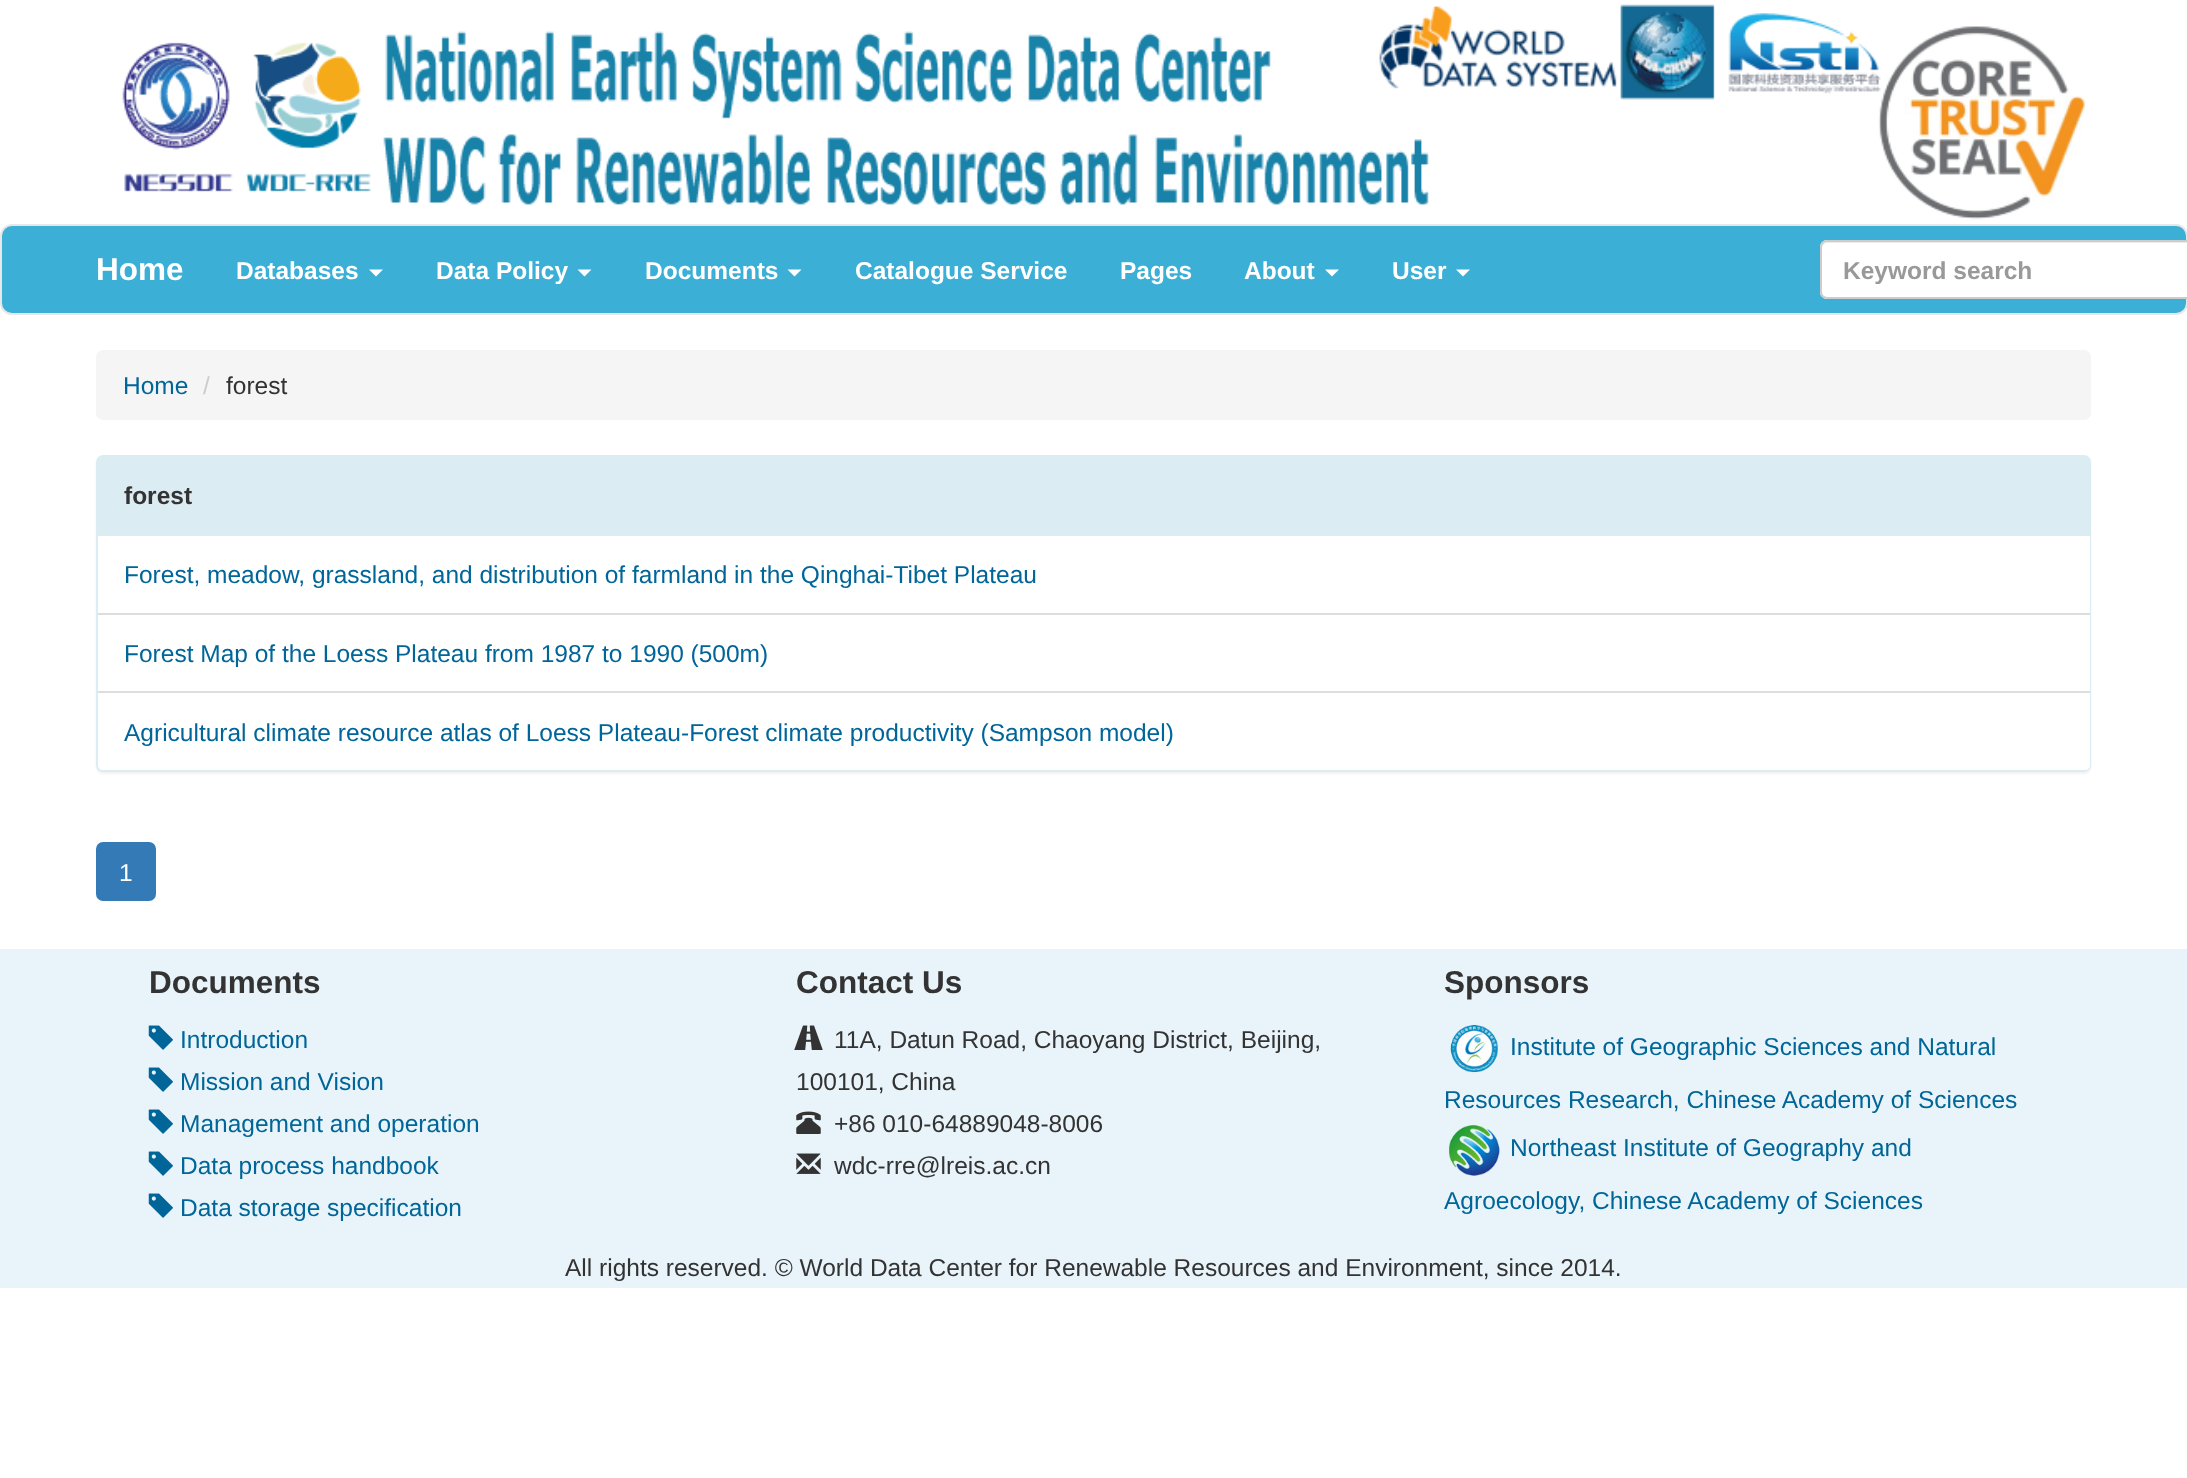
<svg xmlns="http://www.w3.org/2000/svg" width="2187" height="1478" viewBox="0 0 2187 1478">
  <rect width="100%" height="100%" fill="rgb(255,255,255)"/>
  <image x="122" y="4" width="1963" height="216" href="pic1.png"/>
  <rect x="1" y="225" width="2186" height="89" rx="11" fill="rgb(59,175,214)" stroke="rgb(231,231,231)" stroke-width="2"/>
  <text x="96" y="280" font-family="Liberation Sans" font-size="31.5" font-weight="bold" fill="rgb(255,255,255)">Home</text>
  <text x="236" y="279" font-family="Liberation Sans" font-size="24.5" font-weight="bold" fill="rgb(255,255,255)">Databases</text>
  <path d="M369 269.5H383L376 276.5Z" fill="rgb(255,255,255)"/>
  <text x="436" y="279" font-family="Liberation Sans" font-size="24.5" font-weight="bold" fill="rgb(255,255,255)">Data Policy</text>
  <path d="M577.5 269.5H591.5L584.5 276.5Z" fill="rgb(255,255,255)"/>
  <text x="645" y="279" font-family="Liberation Sans" font-size="24.5" font-weight="bold" fill="rgb(255,255,255)">Documents</text>
  <path d="M787.5 269.5H801.5L794.5 276.5Z" fill="rgb(255,255,255)"/>
  <g font-family="Liberation Sans" font-size="24.5" font-weight="bold" fill="rgb(255,255,255)">
    <text x="855" y="279">Catalogue Service</text>
    <text x="1120" y="279">Pages</text>
    <text x="1244" y="279">About</text>
  </g>
  <path d="M1325 269.5H1339L1332 276.5Z" fill="rgb(255,255,255)"/>
  <text x="1392" y="279" font-family="Liberation Sans" font-size="24.5" font-weight="bold" fill="rgb(255,255,255)">User</text>
  <path d="M1456 269.5H1470L1463 276.5Z" fill="rgb(255,255,255)"/>
  <rect x="1820" y="240" width="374" height="59" rx="7" fill="rgb(255,255,255)"/>
  <path d="M1827 243H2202C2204 243 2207 246 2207 248V247C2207 244 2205 242 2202 242H1827C1824 242 1822 244 1822 247V248C1822 246 1824 243 1827 243Z" fill="rgb(236,236,236)"/>
  <rect x="1821" y="241" width="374" height="57" rx="6" fill="none" stroke="rgb(204,204,204)" stroke-width="2"/>
  <text x="1843" y="279" font-family="Liberation Sans" font-size="24.5" font-weight="bold" fill="rgb(153,153,153)">Keyword search</text>
  <rect x="96" y="350" width="1995" height="70" rx="7" fill="rgb(245,245,245)"/>
  <text x="123" y="394" font-family="Liberation Sans" font-size="24.5" fill="rgb(0,102,153)">Home</text>
  <text x="203" y="394" font-family="Liberation Sans" font-size="24.5" fill="rgb(204,204,204)">/</text>
  <text x="226" y="394" font-family="Liberation Sans" font-size="24.5" fill="rgb(51,51,51)">forest</text>
  <rect x="96" y="457" width="1995" height="317" rx="7" fill="rgba(0,0,0,0.05)" filter="blur(1px)"/>
  <rect x="97" y="456" width="1993" height="315" rx="6" fill="none" stroke="rgb(219,236,243)" stroke-width="2"/>
  <path d="M103 457H2085C2088 457 2090 459 2090 462V536H98V462C98 459 100 457 103 457Z" fill="rgb(219,236,243)"/>
  <text x="124" y="504" font-family="Liberation Sans" font-size="24.5" font-weight="bold" fill="rgb(51,51,51)">forest</text>
  <rect x="98" y="536" width="1992" height="77" fill="rgb(255,255,255)"/>
  <text x="124" y="583" font-family="Liberation Sans" font-size="24.5" fill="rgb(0,102,153)">Forest, meadow, grassland, and distribution of farmland in the Qinghai-Tibet Plateau</text>
  <rect x="98" y="615" width="1992" height="76" fill="rgb(255,255,255)"/>
  <rect x="98" y="613" width="1992" height="2" fill="rgb(221,221,221)"/>
  <text x="124" y="662" font-family="Liberation Sans" font-size="24.5" fill="rgb(0,102,153)">Forest Map of the Loess Plateau from 1987 to 1990 (500m)</text>
  <path d="M98 691H2090V765C2090 768 2088 770 2085 770H103C100 770 98 768 98 765Z" fill="rgb(255,255,255)"/>
  <rect x="98" y="691" width="1992" height="2" fill="rgb(221,221,221)"/>
  <text x="124" y="741" font-family="Liberation Sans" font-size="24.5" fill="rgb(0,102,153)">Agricultural climate resource atlas of Loess Plateau-Forest climate productivity (Sampson model)</text>
  <rect x="97" y="843" width="58" height="57" rx="6" fill="rgb(51,122,183)" stroke="rgb(51,122,183)" stroke-width="2"/>
  <text x="119" y="881" font-family="Liberation Sans" font-size="24.5" fill="rgb(255,255,255)">1</text>
  <rect x="0" y="949" width="2187" height="339" fill="rgb(233,244,250)"/>
  <text x="149" y="993" font-family="Liberation Sans" font-size="31.5" font-weight="bold" fill="rgb(51,51,51)">Documents</text>
  <image x="148" y="1025" width="25" height="25" href="pic2.png"/>
  <text x="180" y="1048" font-family="Liberation Sans" font-size="24.5" fill="rgb(0,102,153)">Introduction</text>
  <image x="148" y="1067" width="25" height="25" href="pic2.png"/>
  <text x="180" y="1090" font-family="Liberation Sans" font-size="24.5" fill="rgb(0,102,153)">Mission and Vision</text>
  <image x="148" y="1109" width="25" height="25" href="pic2.png"/>
  <text x="180" y="1132" font-family="Liberation Sans" font-size="24.5" fill="rgb(0,102,153)">Management and operation</text>
  <image x="148" y="1151" width="25" height="25" href="pic2.png"/>
  <text x="180" y="1174" font-family="Liberation Sans" font-size="24.5" fill="rgb(0,102,153)">Data process handbook</text>
  <image x="148" y="1193" width="25" height="25" href="pic2.png"/>
  <text x="180" y="1216" font-family="Liberation Sans" font-size="24.5" fill="rgb(0,102,153)">Data storage specification</text>
  <text x="796" y="993" font-family="Liberation Sans" font-size="31.5" font-weight="bold" fill="rgb(51,51,51)">Contact Us</text>
  <image x="794" y="1025" width="29" height="25" href="pic3.png"/>
  <g font-family="Liberation Sans" font-size="24.5" fill="rgb(51,51,51)">
    <text x="834" y="1048">11A, Datun Road, Chaoyang District, Beijing,</text>
    <text x="796" y="1090">100101, China</text>
  </g>
  <image x="796" y="1111" width="25" height="23" href="pic4.png"/>
  <text x="834" y="1132" font-family="Liberation Sans" font-size="24.5" fill="rgb(51,51,51)">+86 010-64889048-8006</text>
  <image x="796" y="1153" width="25" height="21" href="pic5.png"/>
  <text x="834" y="1174" font-family="Liberation Sans" font-size="24.5" fill="rgb(51,51,51)">wdc-rre@lreis.ac.cn</text>
  <text x="1444" y="993" font-family="Liberation Sans" font-size="31.5" font-weight="bold" fill="rgb(51,51,51)">Sponsors</text>
  <image x="1450" y="1024" width="48" height="49" href="pic6.png"/>
  <g font-family="Liberation Sans" font-size="24.5" fill="rgb(0,102,153)">
    <text x="1510" y="1055">Institute of Geographic Sciences and Natural</text>
    <text x="1444" y="1108">Resources Research, Chinese Academy of Sciences</text>
  </g>
  <image x="1449" y="1125" width="51" height="51" href="pic7.png"/>
  <g font-family="Liberation Sans" font-size="24.5" fill="rgb(0,102,153)">
    <text x="1510" y="1156">Northeast Institute of Geography and</text>
    <text x="1444" y="1209">Agroecology, Chinese Academy of Sciences</text>
  </g>
  <text x="565" y="1276" font-family="Liberation Sans" font-size="24.5" fill="rgb(51,51,51)">All rights reserved. © World Data Center for Renewable Resources and Environment, since 2014.</text>
</svg>
